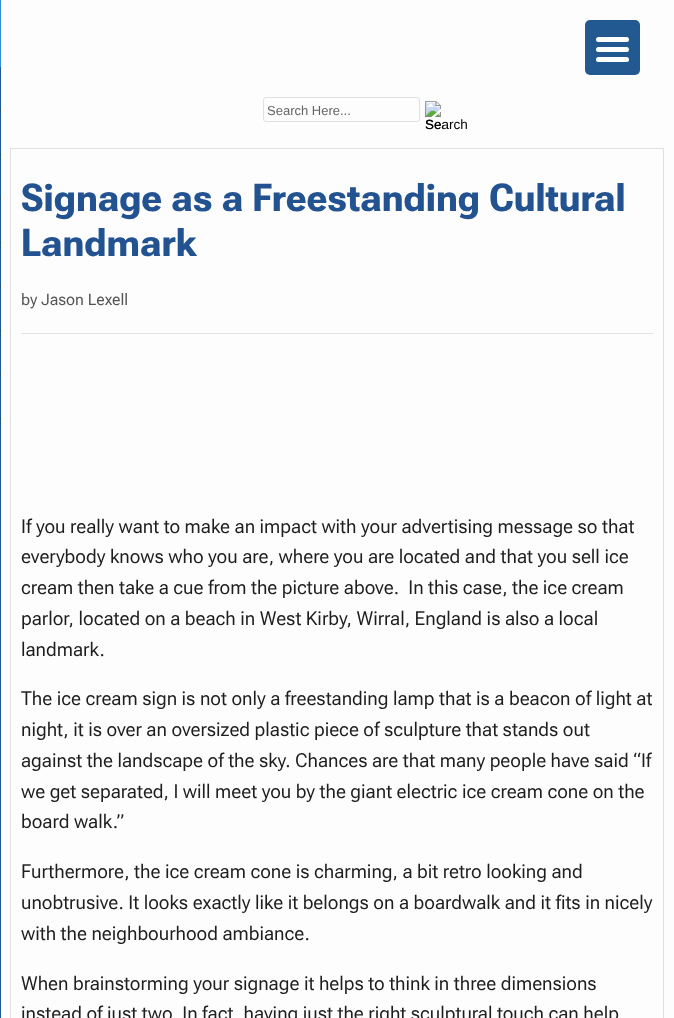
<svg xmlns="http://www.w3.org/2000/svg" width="674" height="1018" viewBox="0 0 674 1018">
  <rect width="100%" height="100%" fill="rgb(253,253,253)"/>
  <rect x="263.5" y="97.5" width="156" height="24" rx="2.5" fill="none" stroke="rgb(224,224,224)"/>
  <text x="267" y="115" font-family="Liberation Sans" font-size="13" fill="rgb(102,102,102)">Search Here...</text>
  <image x="425" y="101" width="18" height="28" href="pic1.png"/>
  <text x="425" y="129" font-family="Liberation Sans" font-size="13.5" fill="rgb(0,0,0)">Search</text>
  <rect x="0" y="67" width="1" height="951" fill="rgb(34,89,144)"/>
  <rect x="0" y="0" width="1" height="67" fill="rgb(51,138,223)"/>
  <rect x="0" y="110" width="1" height="1" fill="rgb(60,60,60)"/>
  <rect x="0" y="154" width="1" height="1" fill="rgb(60,60,60)"/>
  <rect x="0" y="198" width="1" height="1" fill="rgb(60,60,60)"/>
  <rect x="0" y="242" width="1" height="1" fill="rgb(60,60,60)"/>
  <rect x="0" y="286" width="1" height="1" fill="rgb(60,60,60)"/>
  <rect x="0" y="330" width="1" height="1" fill="rgb(60,60,60)"/>
  <rect x="0" y="374" width="1" height="1" fill="rgb(60,60,60)"/>
  <rect x="0" y="418" width="1" height="1" fill="rgb(60,60,60)"/>
  <rect x="585" y="20" width="55" height="55" rx="5" fill="rgb(34,89,144)"/>
  <rect x="596" y="47" width="33" height="5" rx="2.5" fill="rgb(255,255,255)"/>
  <rect x="596" y="37" width="33" height="5" rx="2.5" fill="rgb(255,255,255)"/>
  <rect x="596" y="57" width="33" height="5" rx="2.5" fill="rgb(255,255,255)"/>
  <rect x="10.5" y="148.5" width="653" height="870" fill="none" stroke="rgb(224,224,224)"/>
  <rect x="21" y="333" width="632" height="1" fill="rgb(226,226,226)"/>
  <g font-family="Roboto Flex" font-size="38.4" font-weight="bold" fill="rgb(34,82,144)">
    <text>
      <tspan x="21" y="211">Signage as a Freestanding Cultural</tspan>
      <tspan x="21" y="256">Landmark</tspan>
    </text>
  </g>
  <text x="21" y="305" font-family="'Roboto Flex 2'" font-size="16" fill="rgb(85,85,85)">by Jason Lexell</text>
  <g font-family="Roboto Flex" font-size="19.2" fill="rgb(30,30,30)">
    <text xml:space="preserve"><tspan x="21" y="533">If you really want to make an impact with your advertising message so that</tspan><tspan x="21" y="563">everybody knows who you are, where you are located and that you sell ice</tspan><tspan x="21" y="594">cream then take a cue from the picture above.  In this case, the ice cream</tspan><tspan x="21" y="625">parlor, located on a beach in West Kirby, Wirral, England is also a local</tspan><tspan x="21" y="656">landmark.</tspan></text>
    <text>
      <tspan x="21" y="705">The ice cream sign is not only a freestanding lamp that is a beacon of light at</tspan>
      <tspan x="21" y="736">night, it is over an oversized plastic piece of sculpture that stands out</tspan>
      <tspan x="21" y="767">against the landscape of the sky. Chances are that many people have said “If</tspan>
      <tspan x="21" y="798">we get separated, I will meet you by the giant electric ice cream cone on the</tspan>
      <tspan x="21" y="828">board walk.”</tspan>
    </text>
    <text>
      <tspan x="21" y="878">Furthermore, the ice cream cone is charming, a bit retro looking and</tspan>
      <tspan x="21" y="909">unobtrusive. It looks exactly like it belongs on a boardwalk and it fits in nicely</tspan>
      <tspan x="21" y="940">with the neighbourhood ambiance.</tspan>
    </text>
    <text>
      <tspan x="21" y="990">When brainstorming your signage it helps to think in three dimensions</tspan>
      <tspan x="21" y="1020">instead of just two. In fact, having just the right sculptural touch can help</tspan>
    </text>
  </g>
</svg>
